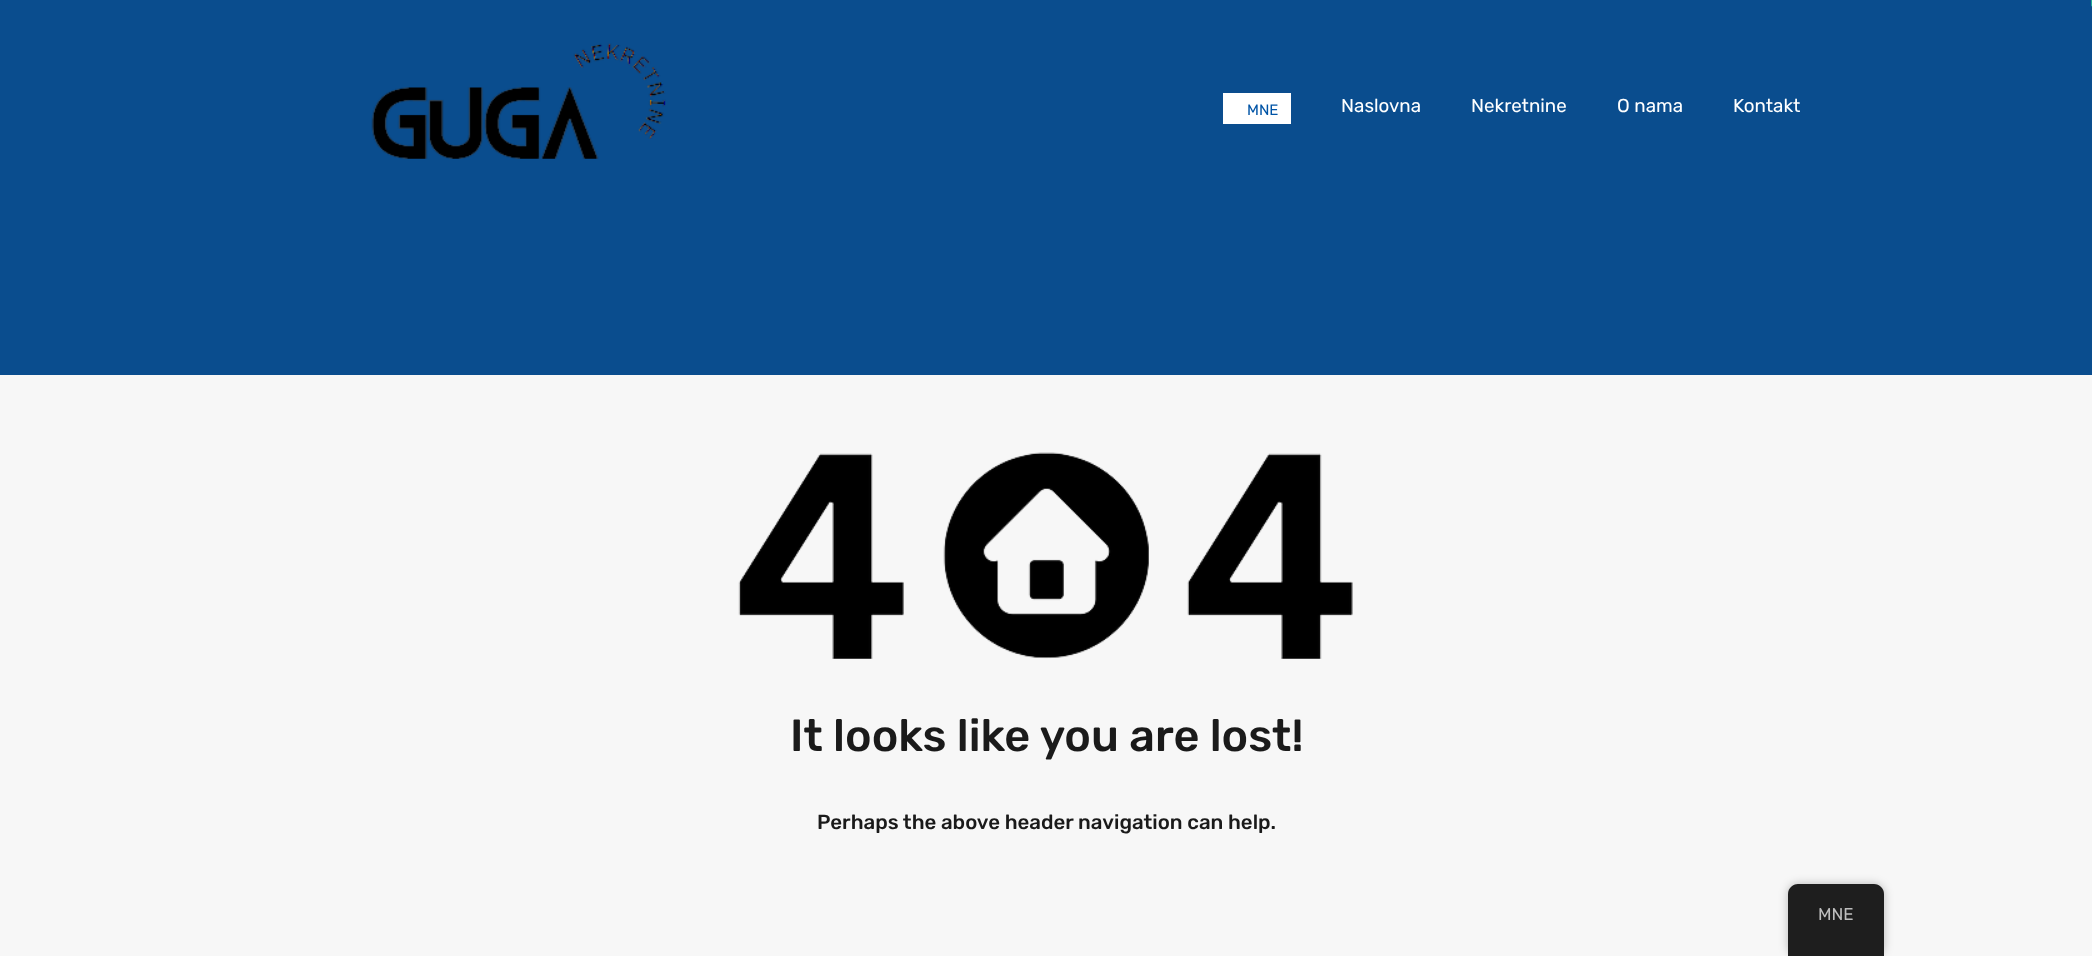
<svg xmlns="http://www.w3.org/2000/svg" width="2092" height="956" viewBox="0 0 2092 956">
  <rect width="100%" height="100%" fill="rgb(247,247,247)"/>
  <rect x="0" y="0" width="2092" height="375" fill="rgb(10,77,142)"/>
  <path d="M2091 3H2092.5" fill="none" stroke="rgb(30,166,154)" stroke-width="6.3"/>
  <image x="371" y="43" width="295" height="116" href="pic1.png"/>
  <rect x="1223" y="93" width="68" height="31" fill="rgb(255,255,255)"/>
  <text x="1247" y="115" font-family="Rubik" font-size="15" fill="rgb(0,84,166)">MNE</text>
  <g font-family="Rubik" font-size="18.75" fill="rgb(255,255,255)">
    <text x="1341" y="112">Naslovna</text>
    <text x="1471" y="112">Nekretnine</text>
    <text x="1617" y="112">O nama</text>
    <text x="1733" y="112">Kontakt</text>
  </g>
  <image x="738" y="452" width="615" height="207" href="pic2.png"/>
  <text x="790" y="751" font-family="Rubik" font-size="45" font-weight="500" fill="rgb(26,26,26)">It looks like you are lost!</text>
  <text x="817" y="829" font-family="Rubik" font-size="20.45" font-weight="500" fill="rgb(26,26,26)">Perhaps the above header navigation can help.</text>
  <rect x="1788" y="884" width="96" height="72" rx="10" fill="rgba(0,0,0,0.25)" filter="blur(5px)"/>
  <path d="M1798 884H1874C1879.5 884 1884 888.5 1884 894V956H1788V894C1788 888.5 1792.5 884 1798 884Z" fill="rgb(30,30,30)"/>
  <text x="1818" y="920" font-family="Rubik" font-size="17" fill="rgb(189,189,189)">MNE</text>
</svg>
